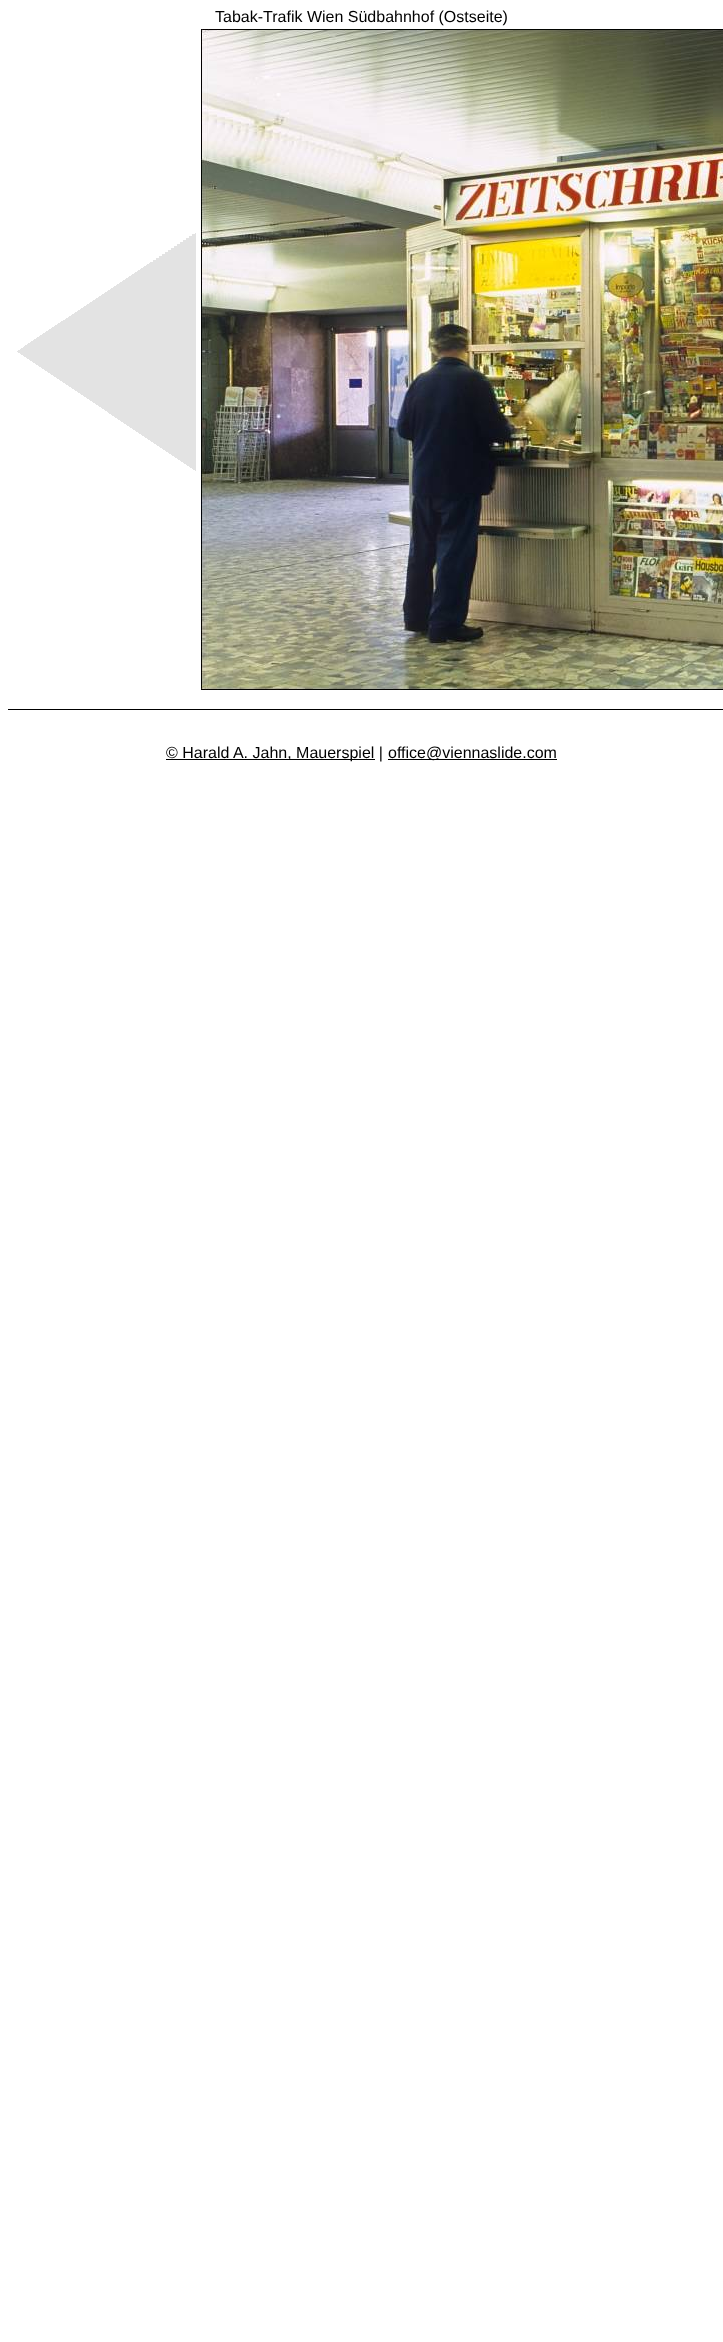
<svg xmlns="http://www.w3.org/2000/svg" width="723" height="2342" viewBox="0 0 723 2342">
  <rect width="100%" height="100%" fill="rgb(255,255,255)"/>
  <text x="215" y="22" font-family="Liberation Sans" font-size="16" fill="rgb(0,0,0)">Tabak-Trafik Wien Südbahnhof (Ostseite)</text>
  <image x="17" y="233" width="179" height="238" href="pic1.png"/>
  <image x="201" y="29" width="522" height="661" href="pic2.png"/>
  <rect x="8" y="709" width="715" height="1" fill="rgb(0,0,0)"/>
  <rect x="166" y="759" width="209" height="1" fill="rgb(0,0,0)"/>
  <text x="166" y="758" font-family="Liberation Sans" font-size="16" fill="rgb(0,0,0)">© Harald A. Jahn, Mauerspiel |</text>
  <rect x="388" y="759" width="169" height="1" fill="rgb(0,0,0)"/>
  <text x="388" y="758" font-family="Liberation Sans" font-size="16" fill="rgb(0,0,0)">office@viennaslide.com</text>
</svg>
